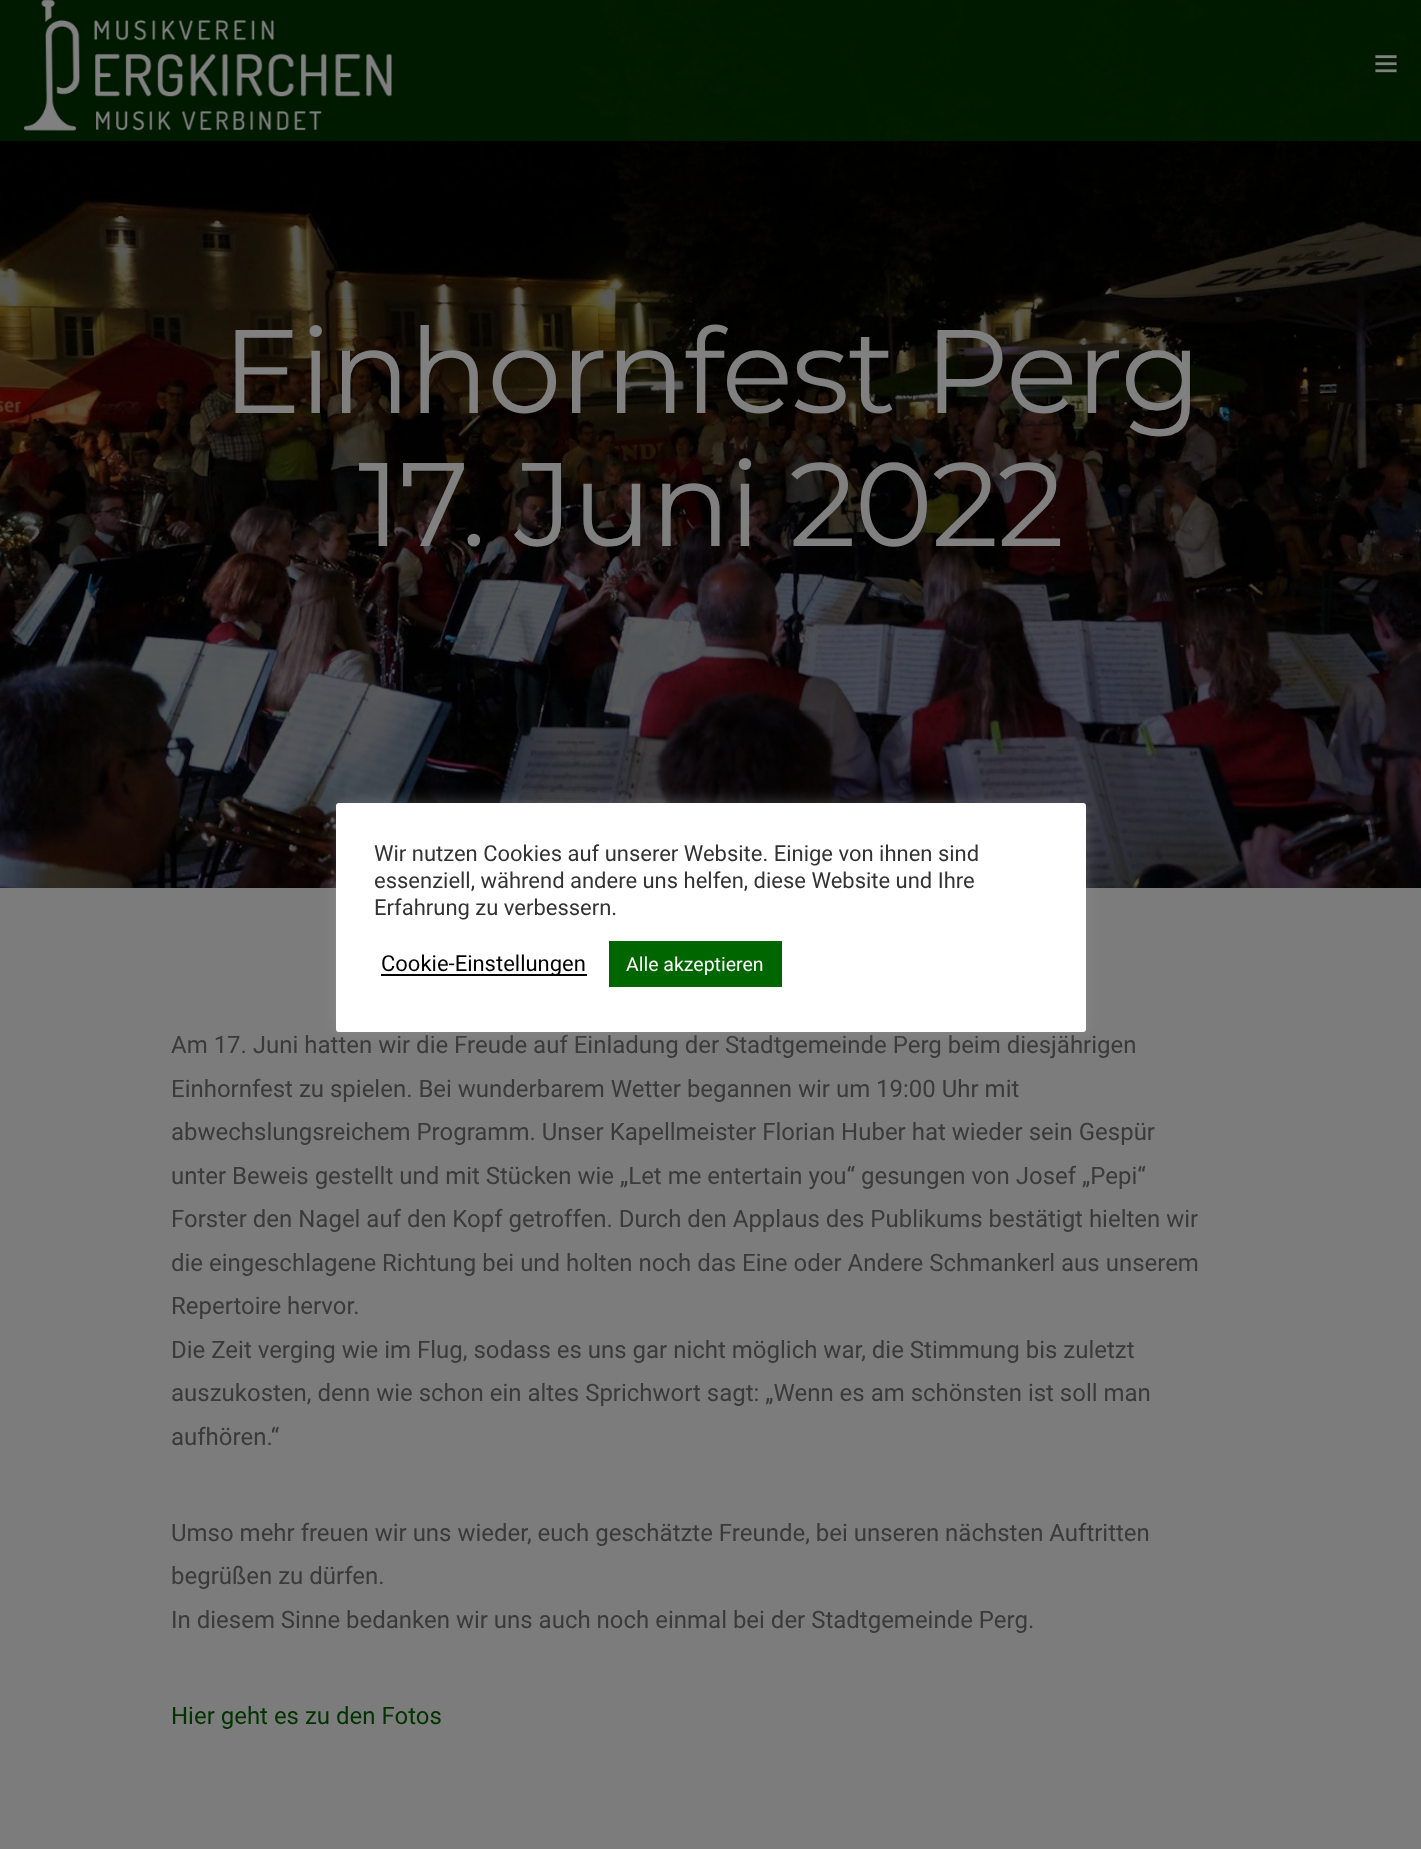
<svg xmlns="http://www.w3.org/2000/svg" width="1421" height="1849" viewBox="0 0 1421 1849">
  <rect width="100%" height="100%" fill="rgb(124,124,124)"/>
  <image x="0" y="0" width="1421" height="888" href="pic3.png"/>
  <rect x="0" y="0" width="1421" height="141" fill="rgba(0,51,0,0.5)"/>
  <image x="24" y="0" width="368" height="131" href="pic1.png"/>
  <image x="1375" y="55" width="22" height="18" href="pic2.png"/>
  <g font-family="Montserrat" font-size="118.5" letter-spacing="-1.5" fill="rgb(128,128,128)">
    <text x="222" y="413">Einhornfest Perg</text>
    <text x="358" y="546">17. Juni 2022</text>
  </g>
  <g font-family="Roboto" font-size="24" fill="rgb(58,58,58)">
    <text>
      <tspan x="171" y="1053">Am 17. Juni hatten wir die Freude auf Einladung der Stadtgemeinde Perg beim diesjährigen</tspan>
      <tspan x="171" y="1097">Einhornfest zu spielen. Bei wunderbarem Wetter begannen wir um 19:00 Uhr mit</tspan>
      <tspan x="171" y="1140">abwechslungsreichem Programm. Unser Kapellmeister Florian Huber hat wieder sein Gespür</tspan>
      <tspan x="171" y="1184">unter Beweis gestellt und mit Stücken wie „Let me entertain you“ gesungen von Josef „Pepi“</tspan>
      <tspan x="171" y="1227">Forster den Nagel auf den Kopf getroffen. Durch den Applaus des Publikums bestätigt hielten wir</tspan>
      <tspan x="171" y="1271">die eingeschlagene Richtung bei und holten noch das Eine oder Andere Schmankerl aus unserem</tspan>
      <tspan x="171" y="1314">Repertoire hervor.</tspan>
      <tspan x="171" y="1358">Die Zeit verging wie im Flug, sodass es uns gar nicht möglich war, die Stimmung bis zuletzt</tspan>
      <tspan x="171" y="1401">auszukosten, denn wie schon ein altes Sprichwort sagt: „Wenn es am schönsten ist soll man</tspan>
      <tspan x="171" y="1445">aufhören.“</tspan>
    </text>
    <text>
      <tspan x="171" y="1541">Umso mehr freuen wir uns wieder, euch geschätzte Freunde, bei unseren nächsten Auftritten</tspan>
      <tspan x="171" y="1584">begrüßen zu dürfen.</tspan>
      <tspan x="171" y="1628">In diesem Sinne bedanken wir uns auch noch einmal bei der Stadtgemeinde Perg.</tspan>
    </text>
  </g>
  <text x="171" y="1724" font-family="Roboto" font-size="24" fill="rgb(0,51,0)">Hier geht es zu den Fotos</text>
  <rect x="336" y="801" width="750" height="230" rx="3" fill="rgba(172,171,171,0.3)" filter="blur(7.5px)"/>
  <rect x="336" y="803" width="750" height="229" rx="3" fill="rgb(255,255,255)"/>
  <g font-family="Roboto" font-size="22" fill="rgb(51,51,51)">
    <text>
      <tspan x="374" y="861">Wir nutzen Cookies auf unserer Website. Einige von ihnen sind</tspan>
      <tspan x="374" y="888">essenziell, während andere uns helfen, diese Website und Ihre</tspan>
      <tspan x="374" y="915">Erfahrung zu verbessern.</tspan>
    </text>
  </g>
  <rect x="381" y="974" width="206" height="2" fill="rgb(0,0,0)"/>
  <text x="381" y="971" font-family="Roboto" font-size="22" fill="rgb(0,0,0)">Cookie-Einstellungen</text>
  <rect x="609" y="941" width="173" height="46" fill="rgb(0,102,0)"/>
  <text x="626" y="971" font-family="Roboto" font-size="19.5" fill="rgb(255,255,255)">Alle akzeptieren</text>
</svg>
